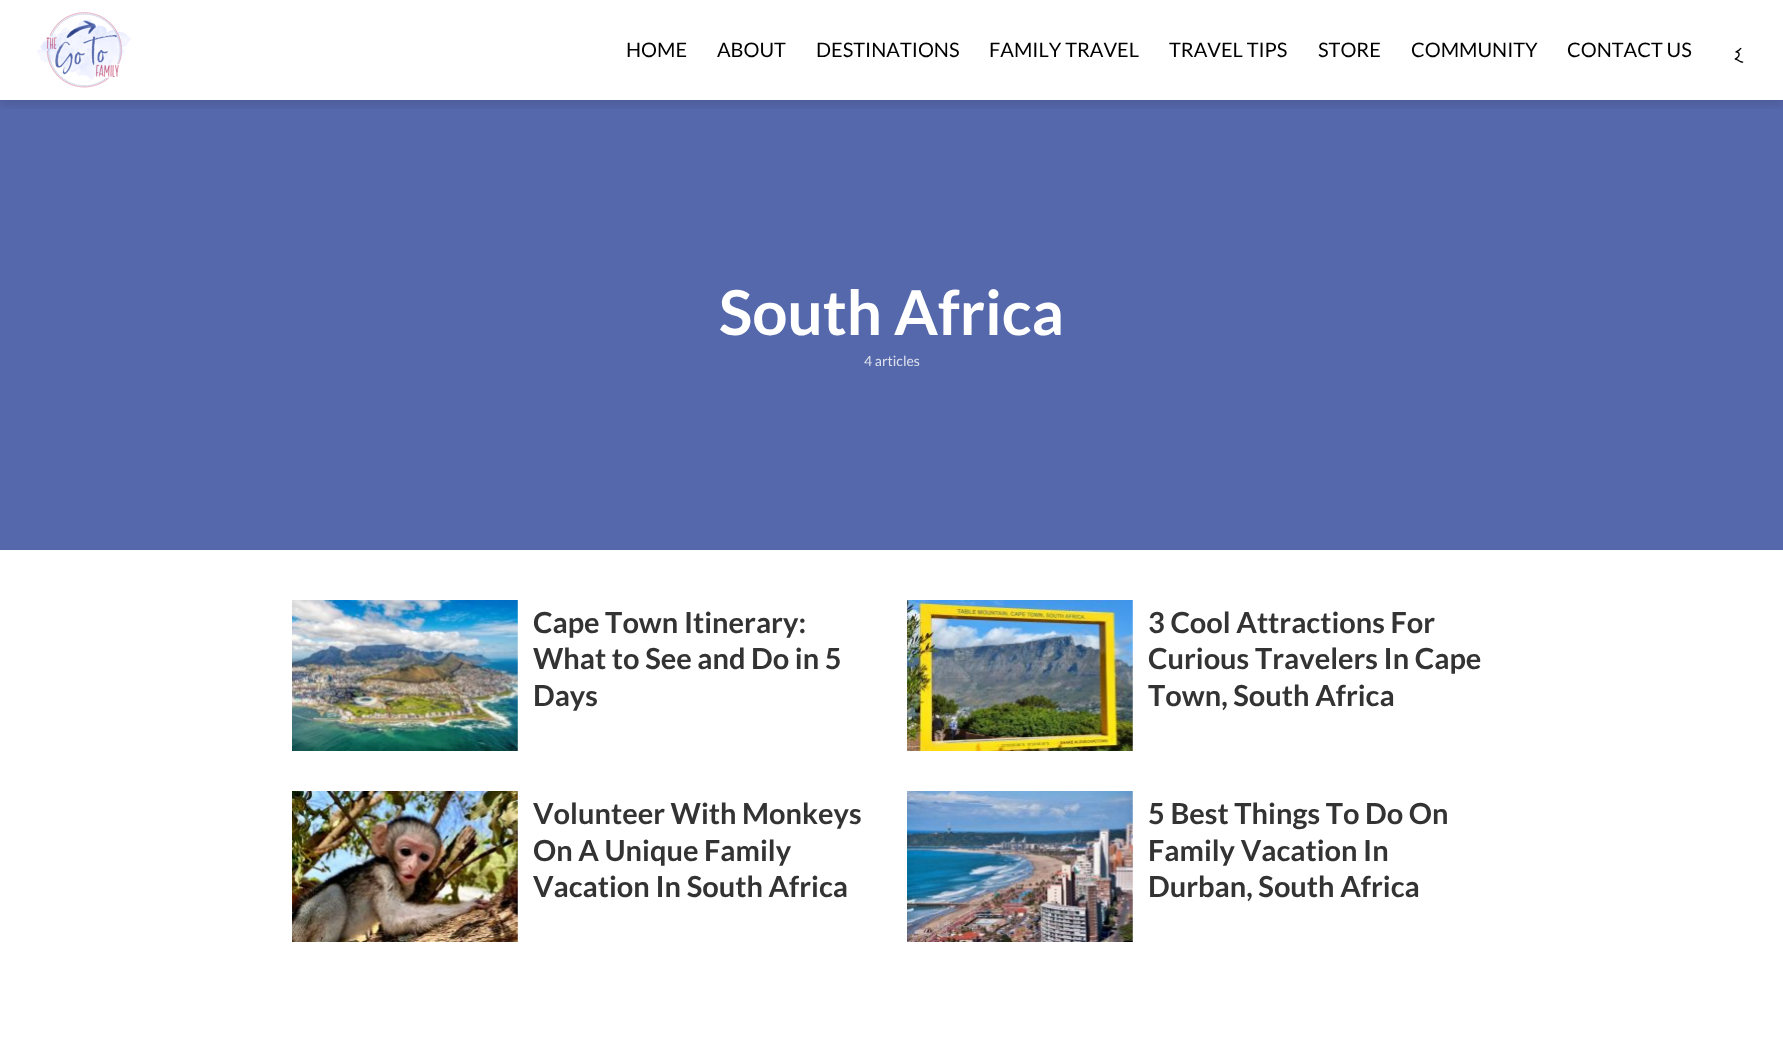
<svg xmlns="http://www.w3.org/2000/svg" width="1783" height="1053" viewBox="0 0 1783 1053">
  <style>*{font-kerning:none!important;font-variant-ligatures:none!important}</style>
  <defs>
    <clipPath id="clip1"><rect x="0" y="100" width="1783" height="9"/></clipPath>
  </defs>
  <rect width="100%" height="100%" fill="rgb(255,255,255)"/>
  <rect x="0" y="100" width="1783" height="450" fill="rgb(85,104,171)"/>
  <g clip-path="url(#clip1)">
    <rect x="0" y="5" width="1783" height="100" fill="rgba(0,0,0,0.1)" filter="blur(5px)"/>
  </g>
  <image x="37" y="12" width="94" height="76" href="pic1.png"/>
  <g font-family="Lato" font-size="20" fill="rgb(0,0,0)">
    <text x="626" y="57">HOME</text>
    <text x="717" y="57">ABOUT</text>
    <text x="816" y="57">DESTINATIONS</text>
    <text x="989" y="57">FAMILY TRAVEL</text>
    <text x="1169" y="57">TRAVEL TIPS</text>
    <text x="1318" y="57">STORE</text>
    <text x="1411" y="57">COMMUNITY</text>
    <text x="1567" y="57">CONTACT US</text>
  </g>
  <text x="1743" y="61" font-family="Noto Sans Meroitic" font-size="20" direction="rtl" fill="rgb(0,0,0)">𐦧</text>
  <text x="719" y="335" font-family="Lato" font-size="62" font-weight="bold" fill="rgb(255,255,255)">South Africa</text>
  <text x="864" y="366" font-family="Lato" font-size="14" fill="rgb(221,225,238)">4 articles</text>
  <image x="292" y="600" width="226" height="151" href="pic2.png"/>
  <g font-family="Lato" font-size="29" font-weight="bold" fill="rgb(51,51,51)">
    <text>
      <tspan x="533" y="633">Cape Town Itinerary:</tspan>
      <tspan x="533" y="669">What to See and Do in 5</tspan>
      <tspan x="533" y="706">Days</tspan>
    </text>
  </g>
  <image x="907" y="600" width="226" height="151" href="pic3.png"/>
  <g font-family="Lato" font-size="29" font-weight="bold" fill="rgb(51,51,51)">
    <text>
      <tspan x="1148" y="633">3 Cool Attractions For</tspan>
      <tspan x="1148" y="669">Curious Travelers In Cape</tspan>
      <tspan x="1148" y="706">Town, South Africa</tspan>
    </text>
  </g>
  <image x="292" y="791" width="226" height="151" href="pic4.png"/>
  <g font-family="Lato" font-size="29" font-weight="bold" fill="rgb(51,51,51)">
    <text>
      <tspan x="533" y="824">Volunteer With Monkeys</tspan>
      <tspan x="533" y="861">On A Unique Family</tspan>
      <tspan x="533" y="897">Vacation In South Africa</tspan>
    </text>
  </g>
  <image x="907" y="791" width="226" height="151" href="pic5.png"/>
  <g font-family="Lato" font-size="29" font-weight="bold" fill="rgb(51,51,51)">
    <text>
      <tspan x="1148" y="824">5 Best Things To Do On</tspan>
      <tspan x="1148" y="861">Family Vacation In</tspan>
      <tspan x="1148" y="897">Durban, South Africa</tspan>
    </text>
  </g>
</svg>
